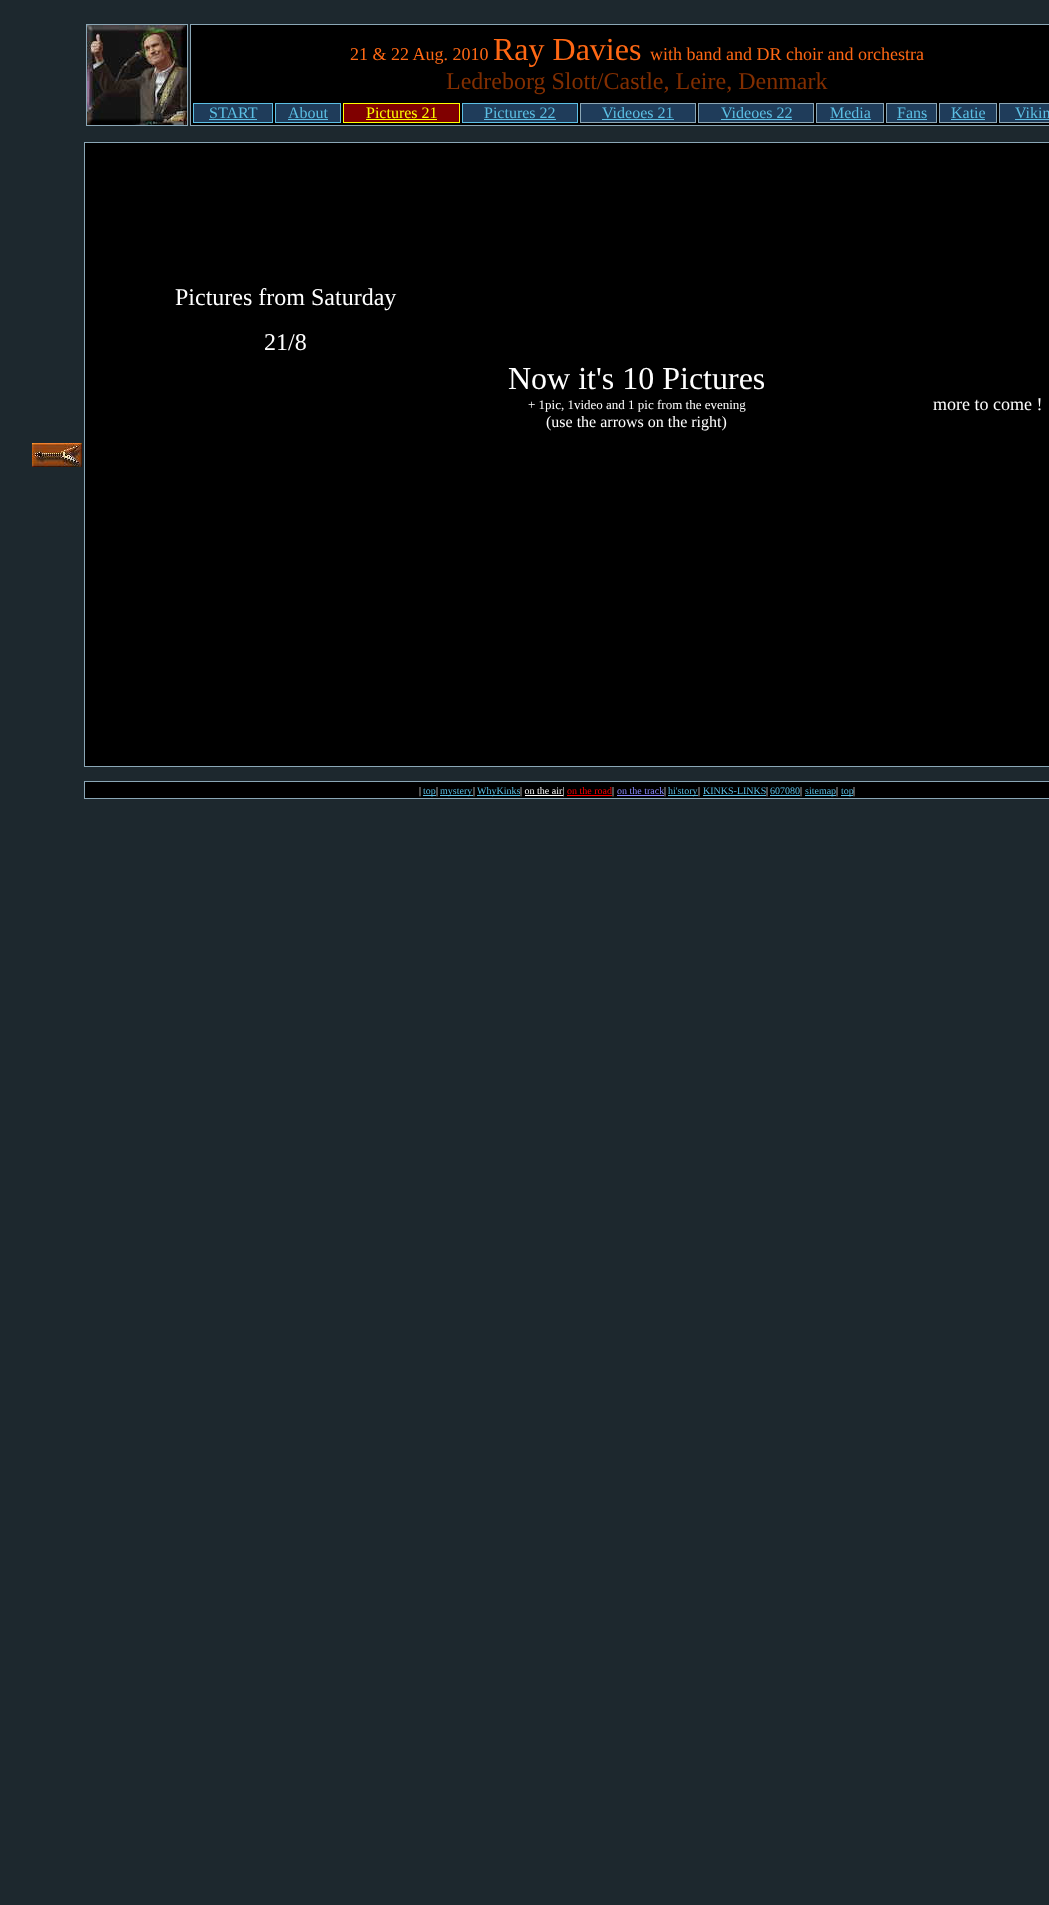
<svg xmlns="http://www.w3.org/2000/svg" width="1049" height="1905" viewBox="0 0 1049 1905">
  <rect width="100%" height="100%" fill="rgb(29,40,46)"/>
  <rect x="86.5" y="24.5" width="101" height="101" fill="none" stroke="rgb(139,167,182)"/>
  <image x="87" y="25" width="100" height="100" href="pic1.png"/>
  <rect x="190.5" y="24.5" width="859" height="101" fill="rgb(0,0,0)" stroke="rgb(139,167,182)"/>
  <text x="350" y="60" font-family="Liberation Serif" font-size="18" fill="rgb(255,104,20)">21 &amp; 22 Aug. 2010</text>
  <text x="493" y="60" font-family="Liberation Serif" font-size="32" fill="rgb(255,104,20)">Ray Davies</text>
  <text x="650" y="60" font-family="Liberation Serif" font-size="18" fill="rgb(255,104,20)">with band and DR choir and orchestra</text>
  <text x="446" y="89" font-family="Liberation Serif" font-size="24" fill="rgb(130,46,0)">Ledreborg Slott/Castle, Leire, Denmark</text>
  <rect x="193.5" y="103.5" width="79" height="19" fill="rgb(31,60,90)" stroke="rgb(92,191,228)"/>
  <text x="209" y="118" font-family="Liberation Serif" font-size="16" fill="rgb(92,191,228)">START</text>
  <rect x="209" y="119" width="48" height="1" fill="rgb(92,191,228)"/>
  <rect x="275.5" y="103.5" width="65" height="19" fill="rgb(31,60,90)" stroke="rgb(92,191,228)"/>
  <text x="288" y="118" font-family="Liberation Serif" font-size="16" fill="rgb(92,191,228)">About</text>
  <rect x="288" y="119" width="40" height="1" fill="rgb(92,191,228)"/>
  <rect x="343.5" y="103.5" width="116" height="19" fill="rgb(128,0,0)" stroke="rgb(255,255,0)"/>
  <text x="366" y="118" font-family="Liberation Serif" font-size="16" fill="rgb(255,255,0)">Pictures 21</text>
  <rect x="366" y="119" width="71" height="1" fill="rgb(255,255,0)"/>
  <rect x="462.5" y="103.5" width="115" height="19" fill="rgb(31,60,90)" stroke="rgb(92,191,228)"/>
  <text x="484" y="118" font-family="Liberation Serif" font-size="16" fill="rgb(92,191,228)">Pictures 22</text>
  <rect x="484" y="119" width="72" height="1" fill="rgb(92,191,228)"/>
  <rect x="580.5" y="103.5" width="115" height="19" fill="rgb(31,60,90)" stroke="rgb(139,167,182)"/>
  <text x="602" y="118" font-family="Liberation Serif" font-size="16" fill="rgb(92,191,228)">Videoes 21</text>
  <rect x="602" y="119" width="72" height="1" fill="rgb(92,191,228)"/>
  <rect x="698.5" y="103.5" width="115" height="19" fill="rgb(31,60,90)" stroke="rgb(139,167,182)"/>
  <text x="721" y="118" font-family="Liberation Serif" font-size="16" fill="rgb(92,191,228)">Videoes 22</text>
  <rect x="721" y="119" width="71" height="1" fill="rgb(92,191,228)"/>
  <rect x="816.5" y="103.5" width="67" height="19" fill="rgb(31,60,90)" stroke="rgb(139,167,182)"/>
  <text x="830" y="118" font-family="Liberation Serif" font-size="16" fill="rgb(92,191,228)">Media</text>
  <rect x="830" y="119" width="41" height="1" fill="rgb(92,191,228)"/>
  <rect x="886.5" y="103.5" width="50" height="19" fill="rgb(31,60,90)" stroke="rgb(139,167,182)"/>
  <text x="897" y="118" font-family="Liberation Serif" font-size="16" fill="rgb(92,191,228)">Fans</text>
  <rect x="897" y="119" width="30" height="1" fill="rgb(92,191,228)"/>
  <rect x="939.5" y="103.5" width="57" height="19" fill="rgb(31,60,90)" stroke="rgb(139,167,182)"/>
  <text x="951" y="118" font-family="Liberation Serif" font-size="16" fill="rgb(92,191,228)">Katie</text>
  <rect x="951" y="119" width="34" height="1" fill="rgb(92,191,228)"/>
  <rect x="999.5" y="103.5" width="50" height="19" fill="rgb(31,60,90)" stroke="rgb(139,167,182)"/>
  <text x="1015" y="118" font-family="Liberation Serif" font-size="16" fill="rgb(92,191,228)">Vikin</text>
  <rect x="1015" y="119" width="34" height="1" fill="rgb(92,191,228)"/>
  <rect x="84.5" y="142.5" width="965" height="624" fill="rgb(0,0,0)" stroke="rgb(139,167,182)"/>
  <g font-family="Liberation Serif" font-size="24" fill="rgb(255,255,255)">
    <text x="175" y="305">Pictures from Saturday</text>
    <text x="264" y="350">21/8</text>
  </g>
  <text x="508" y="389" font-family="Liberation Serif" font-size="32" fill="rgb(255,255,255)">Now it's 10 Pictures</text>
  <text x="528" y="409" font-family="Liberation Serif" font-size="13" fill="rgb(255,255,255)">+ 1pic, 1video and 1 pic from the evening</text>
  <text x="546" y="427" font-family="Liberation Serif" font-size="16" fill="rgb(255,255,255)">(use the arrows on the right)</text>
  <text x="933" y="410" font-family="Liberation Serif" font-size="18" fill="rgb(255,255,255)">more to come !</text>
  <image x="32" y="443" width="50" height="24" href="pic2.png"/>
  <rect x="84.5" y="781.5" width="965" height="17" fill="rgb(0,0,0)" stroke="rgb(139,167,182)"/>
  <g font-family="Liberation Serif" font-size="10" fill="rgb(255,255,255)">
    <text x="419" y="794">|</text>
    <text x="436" y="794">|</text>
    <text x="473" y="794">|</text>
  </g>
  <rect x="477" y="795" width="43" height="1" fill="rgb(92,191,228)"/>
  <text x="477" y="794" font-family="Liberation Serif" font-size="10" fill="rgb(92,191,228)">WhyKinks</text>
  <text x="520" y="794" font-family="Liberation Serif" font-size="10" fill="rgb(255,255,255)">| on the air|</text>
  <text x="567" y="794" font-family="Liberation Serif" font-size="10" fill="rgb(255,0,0)">on the road</text>
  <rect x="567" y="795" width="45" height="1" fill="rgb(255,0,0)"/>
  <rect x="423" y="795" width="13" height="1" fill="rgb(92,191,228)"/>
  <text x="423" y="794" font-family="Liberation Serif" font-size="10" fill="rgb(92,191,228)">top</text>
  <rect x="440" y="795" width="33" height="1" fill="rgb(92,191,228)"/>
  <text x="440" y="794" font-family="Liberation Serif" font-size="10" fill="rgb(92,191,228)">mystery</text>
  <rect x="525" y="795" width="38" height="1" fill="rgb(255,255,255)"/>
  <text x="612" y="794" font-family="Liberation Serif" font-size="10" fill="rgb(255,255,255)">|</text>
  <text x="617" y="794" font-family="Liberation Serif" font-size="10" fill="rgb(140,140,255)">on the track</text>
  <rect x="617" y="795" width="47" height="1" fill="rgb(140,140,255)"/>
  <text x="664" y="794" font-family="Liberation Serif" font-size="10" fill="rgb(255,255,255)">|</text>
  <rect x="668" y="795" width="30" height="1" fill="rgb(92,191,228)"/>
  <text x="668" y="794" font-family="Liberation Serif" font-size="10" fill="rgb(92,191,228)">hi'story</text>
  <text x="698" y="794" font-family="Liberation Serif" font-size="10" fill="rgb(255,255,255)">|</text>
  <text x="703" y="794" font-family="Liberation Serif" font-size="10" fill="rgb(92,191,228)">KINKS-LINKS</text>
  <rect x="703" y="795" width="63" height="1" fill="rgb(92,191,228)"/>
  <text x="766" y="794" font-family="Liberation Serif" font-size="10" fill="rgb(255,255,255)">|</text>
  <text x="770" y="794" font-family="Liberation Serif" font-size="10" fill="rgb(92,191,228)">607080</text>
  <rect x="770" y="795" width="30" height="1" fill="rgb(92,191,228)"/>
  <text x="800" y="794" font-family="Liberation Serif" font-size="10" fill="rgb(255,255,255)">|</text>
  <rect x="805" y="795" width="31" height="1" fill="rgb(92,191,228)"/>
  <text x="805" y="794" font-family="Liberation Serif" font-size="10" fill="rgb(92,191,228)">sitemap</text>
  <text x="836" y="794" font-family="Liberation Serif" font-size="10" fill="rgb(255,255,255)">|</text>
  <rect x="841" y="795" width="12" height="1" fill="rgb(92,191,228)"/>
  <text x="841" y="794" font-family="Liberation Serif" font-size="10" fill="rgb(92,191,228)">top</text>
  <text x="853" y="794" font-family="Liberation Serif" font-size="10" fill="rgb(255,255,255)">|</text>
</svg>
